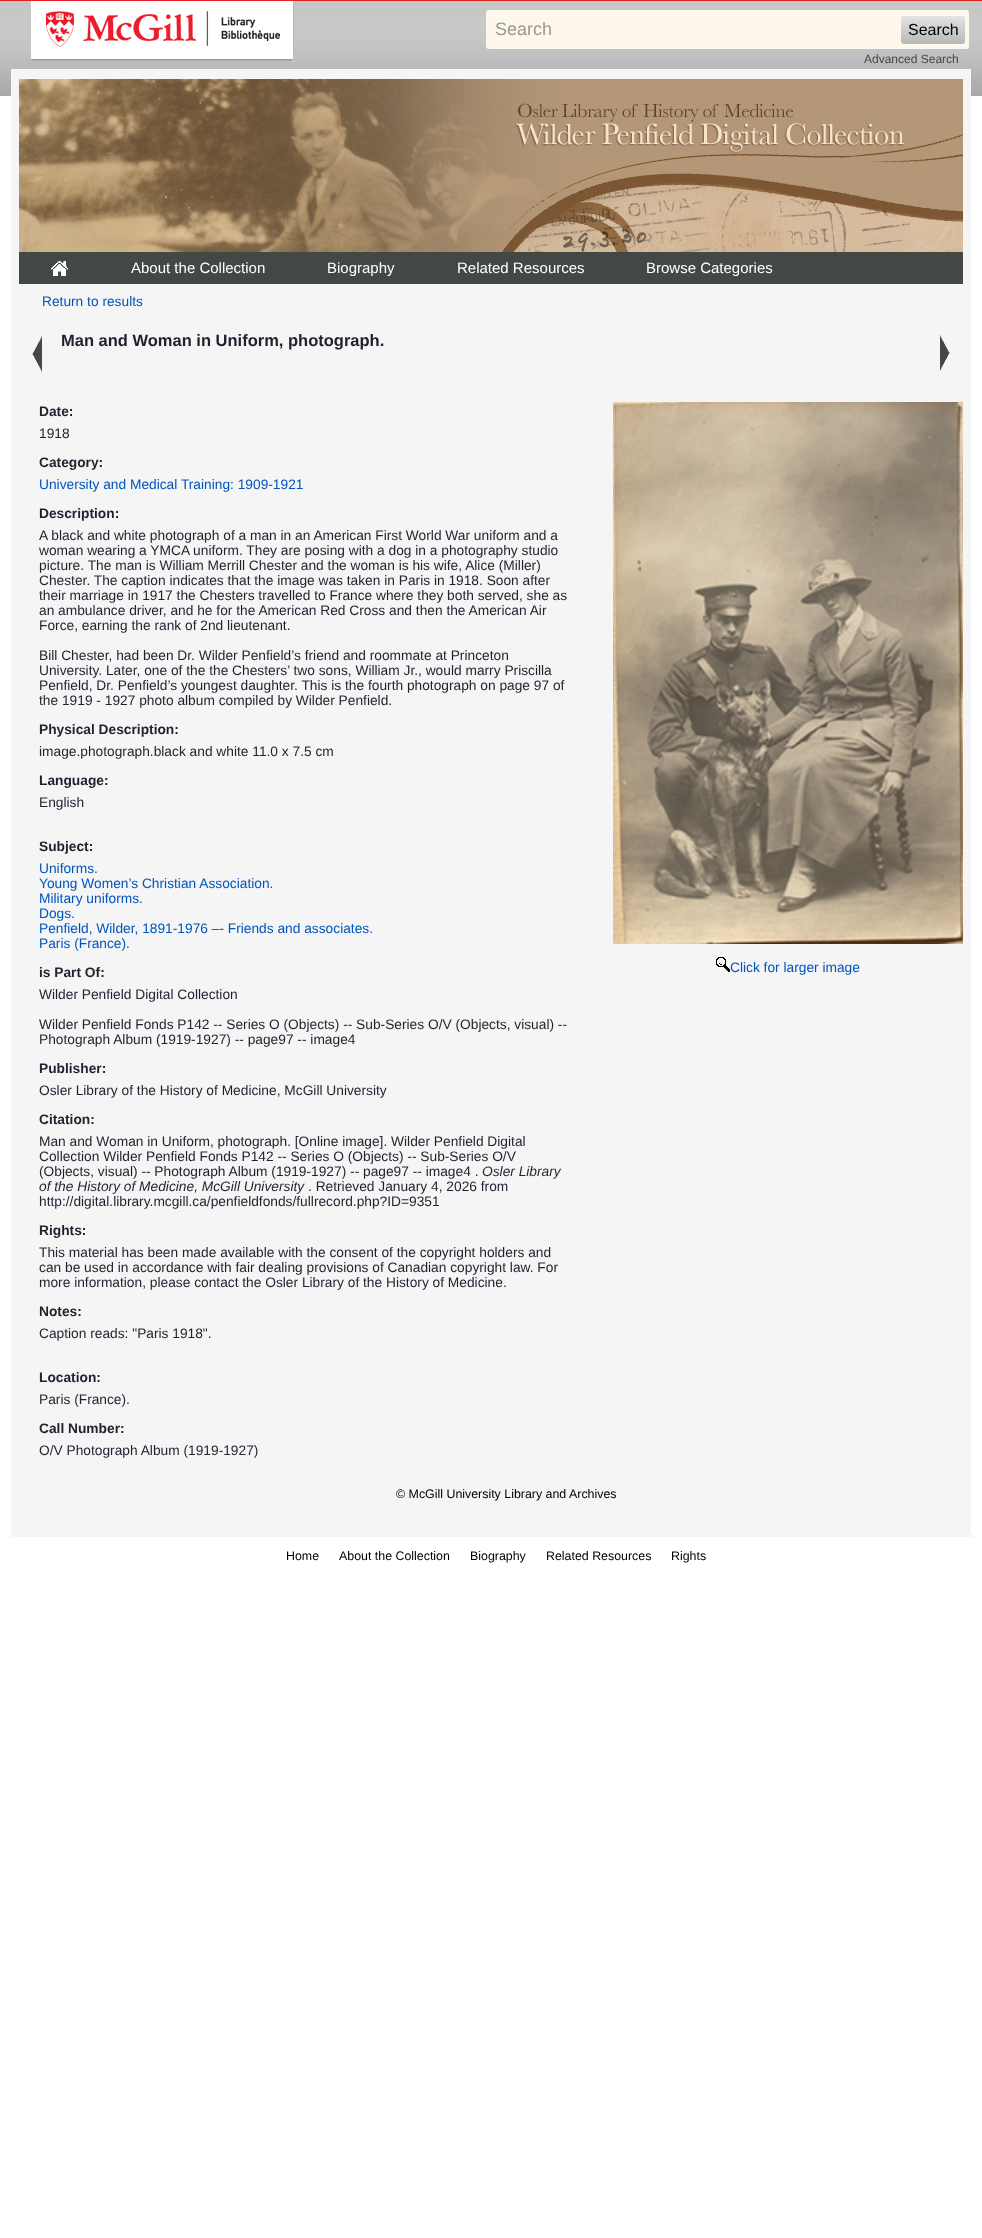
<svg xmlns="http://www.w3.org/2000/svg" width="982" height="2238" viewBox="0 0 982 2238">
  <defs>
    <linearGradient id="g1" gradientUnits="userSpaceOnUse" x1="901" y1="16" x2="901" y2="44"><stop offset="0" stop-color="rgb(228,228,228)"/><stop offset="1" stop-color="rgb(184,184,184)"/></linearGradient>
  </defs>
  <rect width="100%" height="100%" fill="rgb(255,255,255)"/>
  <image x="0" y="0" width="982" height="96" href="pic1.png"/>
  <image x="31" y="0" width="263" height="62" href="pic2.png"/>
  <rect x="486" y="10" width="483" height="39" rx="3" fill="rgb(253,248,235)"/>
  <text x="495" y="35" font-family="Liberation Sans" font-size="18" fill="rgb(153,152,152)">Search</text>
  <rect x="901" y="16" width="64" height="28" rx="3" fill="url(#g1)"/>
  <text x="908" y="35" font-family="Liberation Sans" font-size="16" fill="rgb(0,0,0)">Search</text>
  <text x="864" y="63" font-family="Liberation Sans" font-size="12" fill="rgb(68,72,68)">Advanced Search</text>
  <rect x="11" y="1534" width="962" height="3" fill="rgb(245,245,245)"/>
  <rect x="11" y="69" width="960" height="1465" fill="rgb(245,245,245)"/>
  <image x="19" y="79" width="944" height="173" href="pic3.png"/>
  <rect x="19" y="252" width="944" height="32" fill="rgb(68,72,68)"/>
  <image x="51" y="261" width="17" height="15" href="pic4.png"/>
  <g font-family="Liberation Sans" font-size="15" fill="rgb(255,255,255)">
    <text x="131" y="273">About the Collection</text>
    <text x="327" y="273">Biography</text>
    <text x="457" y="273">Related Resources</text>
    <text x="646" y="273">Browse Categories</text>
  </g>
  <text x="42" y="306" font-family="Liberation Sans" font-size="13.75" fill="rgb(0,85,187)">Return to results</text>
  <image x="32" y="336" width="10" height="36" href="pic5.png"/>
  <text x="61" y="346" font-family="Liberation Sans" font-size="16.5" font-weight="bold" fill="rgb(31,33,46)">Man and Woman in Uniform, photograph.</text>
  <image x="940" y="335" width="10" height="36" href="pic6.png"/>
  <text x="39" y="416" font-family="Liberation Sans" font-size="13.75" font-weight="bold" fill="rgb(31,33,46)">Date:</text>
  <text x="39" y="438" font-family="Liberation Sans" font-size="13.75" fill="rgb(31,33,46)">1918</text>
  <text x="39" y="467" font-family="Liberation Sans" font-size="13.75" font-weight="bold" fill="rgb(31,33,46)">Category:</text>
  <text x="39" y="489" font-family="Liberation Sans" font-size="13.75" fill="rgb(0,85,187)">University and Medical Training: 1909-1921</text>
  <text x="39" y="518" font-family="Liberation Sans" font-size="13.75" font-weight="bold" fill="rgb(31,33,46)">Description:</text>
  <g font-family="Liberation Sans" font-size="13.75" fill="rgb(31,33,46)">
    <text>
      <tspan x="39" y="540">A black and white photograph of a man in an American First World War uniform and a</tspan>
      <tspan x="39" y="555">woman wearing a YMCA uniform. They are posing with a dog in a photography studio</tspan>
      <tspan x="39" y="570">picture. The man is William Merrill Chester and the woman is his wife, Alice (Miller)</tspan>
      <tspan x="39" y="585">Chester. The caption indicates that the image was taken in Paris in 1918. Soon after</tspan>
      <tspan x="39" y="600">their marriage in 1917 the Chesters travelled to France where they both served, she as</tspan>
      <tspan x="39" y="615">an ambulance driver, and he for the American Red Cross and then the American Air</tspan>
      <tspan x="39" y="630">Force, earning the rank of 2nd lieutenant.</tspan>
    </text>
    <text>
      <tspan x="39" y="660">Bill Chester, had been Dr. Wilder Penfield’s friend and roommate at Princeton</tspan>
      <tspan x="39" y="675">University. Later, one of the the Chesters’ two sons, William Jr., would marry Priscilla</tspan>
      <tspan x="39" y="690">Penfield, Dr. Penfield’s youngest daughter. This is the fourth photograph on page 97 of</tspan>
      <tspan x="39" y="705">the 1919 - 1927 photo album compiled by Wilder Penfield.</tspan>
    </text>
  </g>
  <text x="39" y="734" font-family="Liberation Sans" font-size="13.75" font-weight="bold" fill="rgb(31,33,46)">Physical Description:</text>
  <text x="39" y="756" font-family="Liberation Sans" font-size="13.75" fill="rgb(31,33,46)">image.photograph.black and white 11.0 x 7.5 cm</text>
  <text x="39" y="785" font-family="Liberation Sans" font-size="13.75" font-weight="bold" fill="rgb(31,33,46)">Language:</text>
  <text x="39" y="807" font-family="Liberation Sans" font-size="13.75" fill="rgb(31,33,46)">English</text>
  <text x="39" y="851" font-family="Liberation Sans" font-size="13.75" font-weight="bold" fill="rgb(31,33,46)">Subject:</text>
  <g font-family="Liberation Sans" font-size="13.75" fill="rgb(0,85,187)">
    <text>
      <tspan x="39" y="873">Uniforms.</tspan>
      <tspan x="39" y="888">Young Women’s Christian Association.</tspan>
      <tspan x="39" y="903">Military uniforms.</tspan>
      <tspan x="39" y="918">Dogs.</tspan>
      <tspan x="39" y="933">Penfield, Wilder, 1891-1976 –- Friends and associates.</tspan>
      <tspan x="39" y="948">Paris (France).</tspan>
    </text>
  </g>
  <text x="39" y="977" font-family="Liberation Sans" font-size="13.75" font-weight="bold" fill="rgb(31,33,46)">is Part Of:</text>
  <g font-family="Liberation Sans" font-size="13.75" fill="rgb(31,33,46)">
    <text x="39" y="999">Wilder Penfield Digital Collection</text>
    <text>
      <tspan x="39" y="1029">Wilder Penfield Fonds P142 -- Series O (Objects) -- Sub-Series O/V (Objects, visual) --</tspan>
      <tspan x="39" y="1044">Photograph Album (1919-1927) -- page97 -- image4</tspan>
    </text>
  </g>
  <text x="39" y="1073" font-family="Liberation Sans" font-size="13.75" font-weight="bold" fill="rgb(31,33,46)">Publisher:</text>
  <text x="39" y="1095" font-family="Liberation Sans" font-size="13.75" fill="rgb(31,33,46)">Osler Library of the History of Medicine, McGill University</text>
  <text x="39" y="1124" font-family="Liberation Sans" font-size="13.75" font-weight="bold" fill="rgb(31,33,46)">Citation:</text>
  <g font-family="Liberation Sans" font-size="13.75" fill="rgb(31,33,46)">
    <text>
      <tspan x="39" y="1146">Man and Woman in Uniform, photograph. [Online image]. Wilder Penfield Digital</tspan>
      <tspan x="39" y="1161">Collection Wilder Penfield Fonds P142 -- Series O (Objects) -- Sub-Series O/V</tspan>
      <tspan x="39" y="1176">(Objects, visual) -- Photograph Album (1919-1927) -- page97 -- image4 .</tspan>
    </text>
  </g>
  <g font-family="Liberation Sans" font-size="13.75" font-style="italic" fill="rgb(31,33,46)">
    <text x="482" y="1176">Osler Library</text>
    <text x="39" y="1191">of the History of Medicine, McGill University</text>
  </g>
  <g font-family="Liberation Sans" font-size="13.75" fill="rgb(31,33,46)">
    <text x="308" y="1191">. Retrieved January 4, 2026 from</text>
    <text x="39" y="1206">http://digital.library.mcgill.ca/penfieldfonds/fullrecord.php?ID=9351</text>
  </g>
  <text x="39" y="1235" font-family="Liberation Sans" font-size="13.75" font-weight="bold" fill="rgb(31,33,46)">Rights:</text>
  <g font-family="Liberation Sans" font-size="13.75" fill="rgb(31,33,46)">
    <text>
      <tspan x="39" y="1257">This material has been made available with the consent of the copyright holders and</tspan>
      <tspan x="39" y="1272">can be used in accordance with fair dealing provisions of Canadian copyright law. For</tspan>
      <tspan x="39" y="1287">more information, please contact the Osler Library of the History of Medicine.</tspan>
    </text>
  </g>
  <text x="39" y="1316" font-family="Liberation Sans" font-size="13.75" font-weight="bold" fill="rgb(31,33,46)">Notes:</text>
  <text x="39" y="1338" font-family="Liberation Sans" font-size="13.75" fill="rgb(31,33,46)">Caption reads: "Paris 1918".</text>
  <text x="39" y="1382" font-family="Liberation Sans" font-size="13.75" font-weight="bold" fill="rgb(31,33,46)">Location:</text>
  <text x="39" y="1404" font-family="Liberation Sans" font-size="13.75" fill="rgb(31,33,46)">Paris (France).</text>
  <text x="39" y="1433" font-family="Liberation Sans" font-size="13.75" font-weight="bold" fill="rgb(31,33,46)">Call Number:</text>
  <text x="39" y="1455" font-family="Liberation Sans" font-size="13.75" fill="rgb(31,33,46)">O/V Photograph Album (1919-1927)</text>
  <image x="613" y="402" width="350" height="542" href="pic7.png"/>
  <image x="716" y="957" width="14" height="15" href="pic8.png"/>
  <text x="730" y="972" font-family="Liberation Sans" font-size="13.75" fill="rgb(0,85,187)">Click for larger image</text>
  <g font-family="Liberation Sans" font-size="12.4" fill="rgb(0,0,0)">
    <text x="396" y="1498">© McGill University Library and Archives</text>
    <text x="286" y="1560">Home</text>
    <text x="339" y="1560">About the Collection</text>
    <text x="470" y="1560">Biography</text>
    <text x="546" y="1560">Related Resources</text>
    <text x="671" y="1560">Rights</text>
  </g>
</svg>
